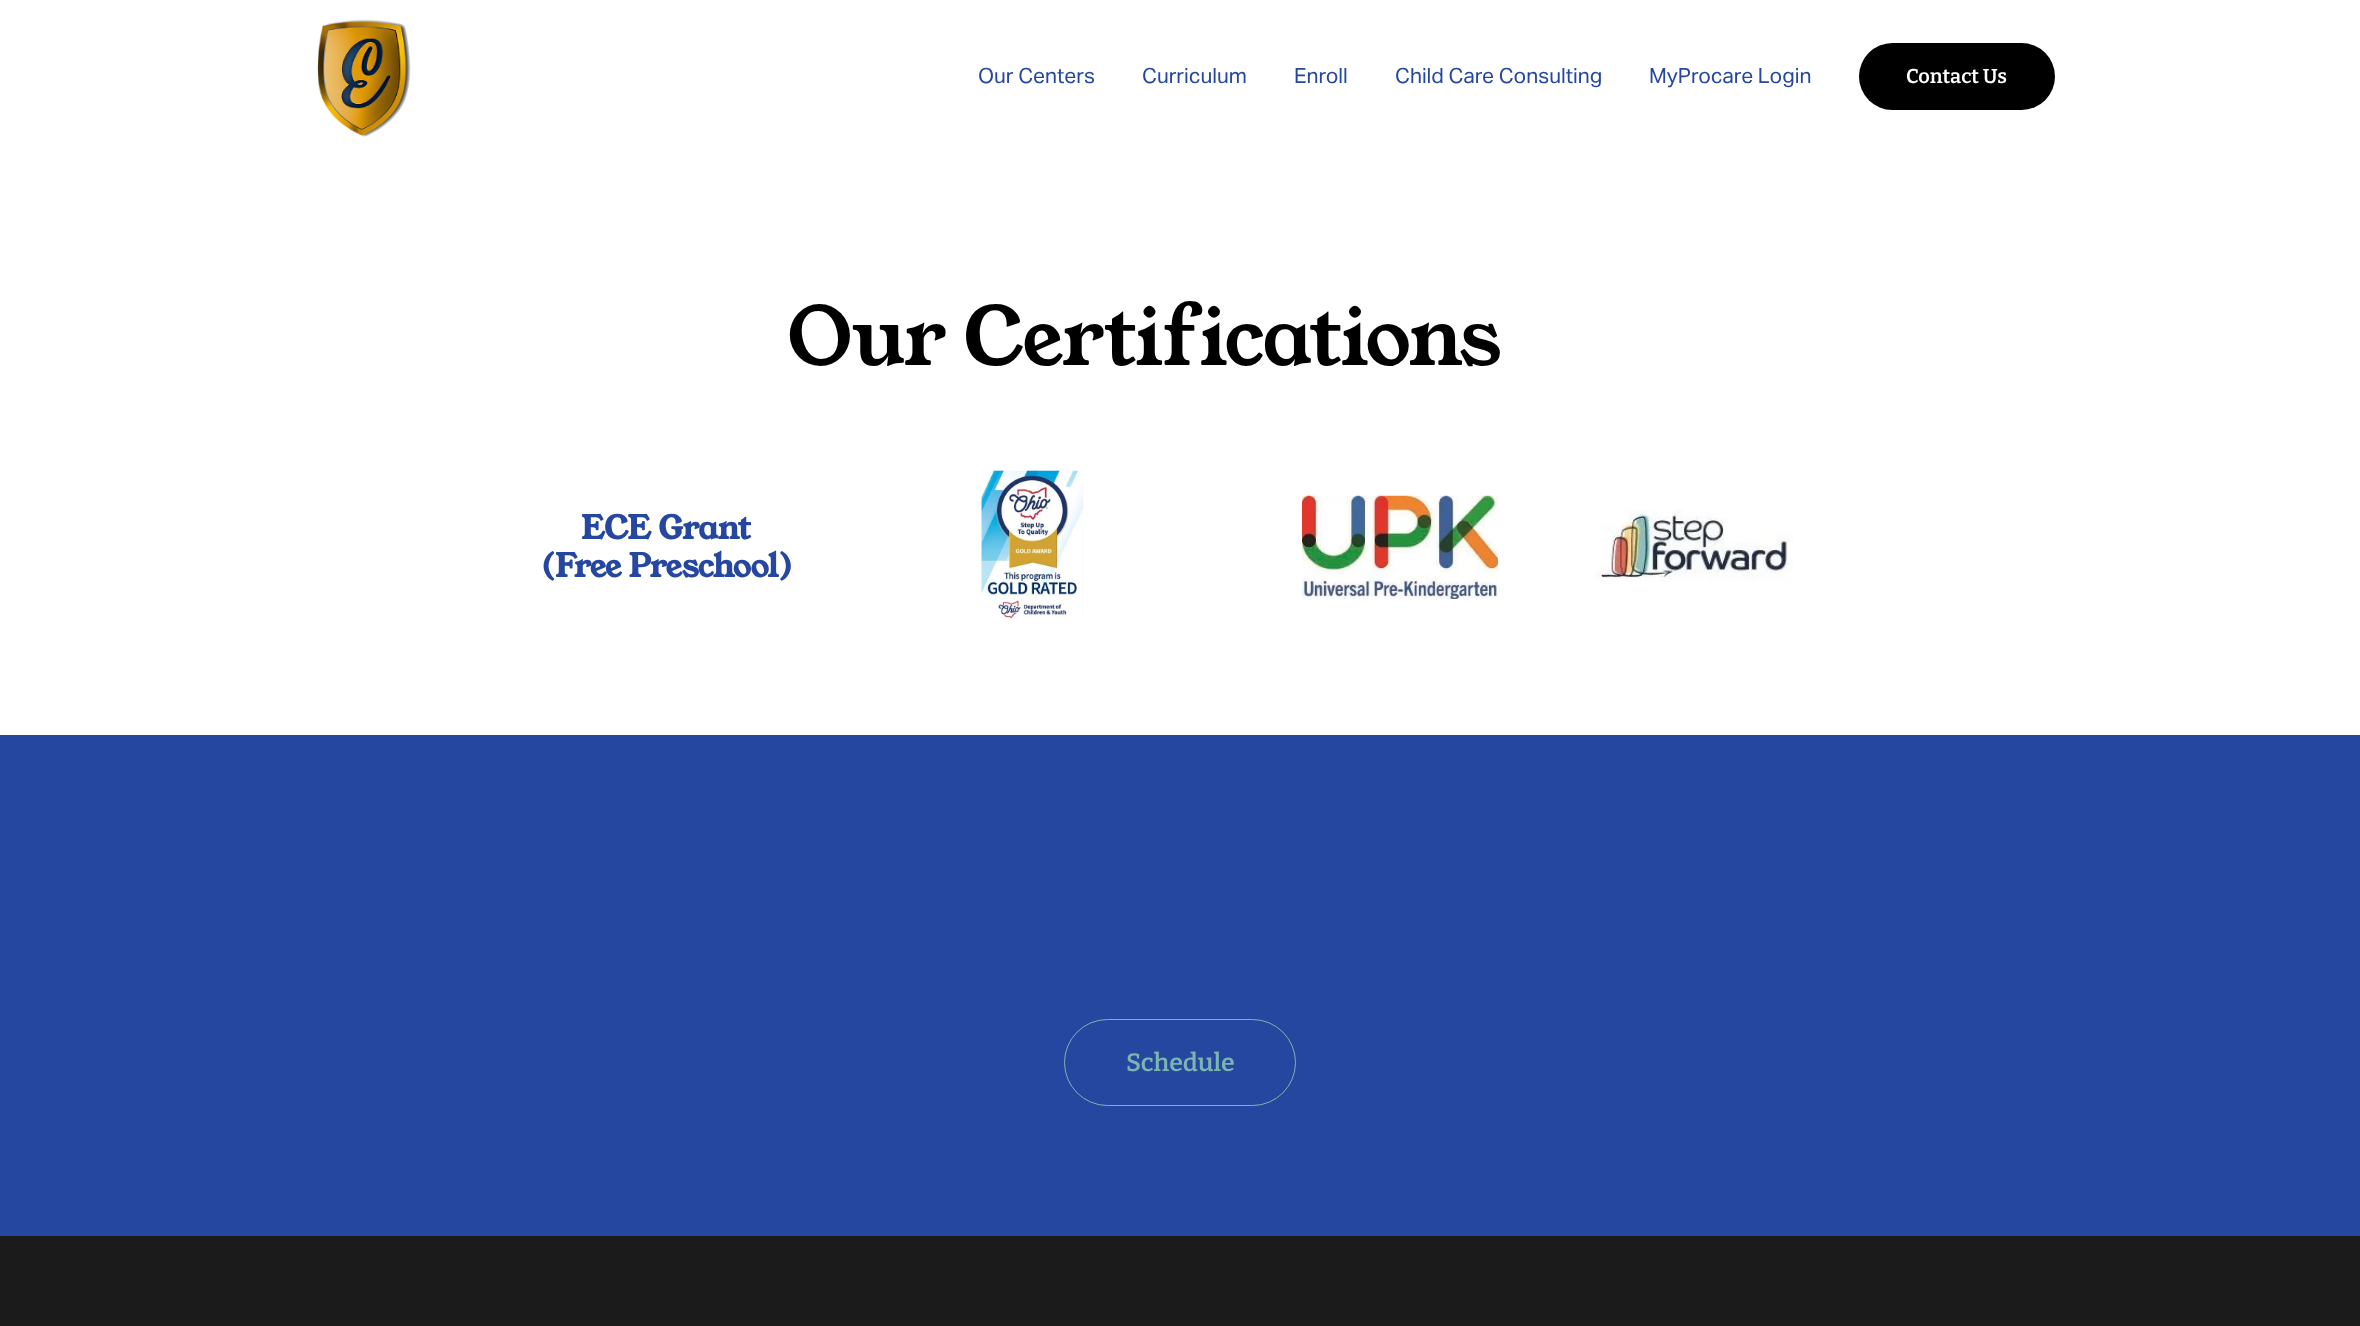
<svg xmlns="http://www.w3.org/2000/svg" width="2360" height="1326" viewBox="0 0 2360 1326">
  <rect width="100%" height="100%" fill="rgb(255,255,255)"/>
  <image x="317" y="19" width="94" height="118" href="pic1.png"/>
  <g font-family="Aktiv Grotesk" font-size="21" fill="rgb(37,71,160)">
    <text x="978" y="83">Our Centers</text>
    <text x="1142" y="83">Curriculum</text>
    <text x="1294" y="83">Enroll</text>
    <text x="1395" y="83">Child Care Consulting</text>
    <text x="1649" y="83">MyProcare Login</text>
  </g>
  <rect x="1859" y="43" width="196" height="67" rx="33.5" fill="rgb(0,0,0)"/>
  <text x="1906" y="83" font-family="Bitter" font-size="20" font-weight="600" fill="rgb(255,255,255)">Contact Us</text>
  <text x="787" y="365" font-family="Young Serif" font-size="80" letter-spacing="-1.6" fill="rgb(0,0,0)">Our Certifications</text>
  <g font-family="Young Serif" font-size="32" font-weight="bold" letter-spacing="-0.6" fill="rgb(37,71,160)">
    <text x="581" y="539">ECE Grant</text>
    <text x="541" y="577">(Free Preschool)</text>
  </g>
  <image x="981" y="470" width="103" height="150" href="pic2.png"/>
  <image x="1302" y="495" width="196" height="104" href="pic3.png"/>
  <image x="1595" y="509" width="198" height="73" href="pic4.png"/>
  <rect x="0" y="735" width="2360" height="501" fill="rgb(37,71,160)"/>
  <rect x="1064.5" y="1019.5" width="231" height="86" rx="43" fill="none" stroke="rgb(123,181,178)"/>
  <text x="1126" y="1071" font-family="Bitter" font-size="25" font-weight="600" fill="rgb(123,181,178)">Schedule</text>
  <rect x="0" y="1236" width="2360" height="90" fill="rgb(27,27,27)"/>
</svg>
